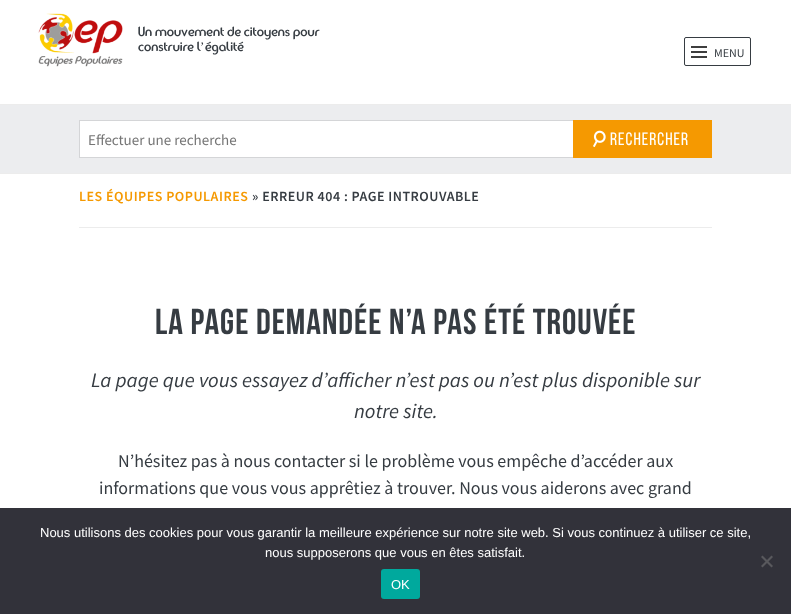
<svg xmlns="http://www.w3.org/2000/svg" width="791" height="614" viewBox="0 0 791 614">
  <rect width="100%" height="100%" fill="rgb(255,255,255)"/>
  <image x="38" y="13" width="85" height="54" href="pic1.png"/>
  <g font-family="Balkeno" font-size="13" fill="rgb(54,60,66)">
    <text>
      <tspan x="138" y="36">Un mouvement de citoyens pour</tspan>
      <tspan x="138" y="51">construire l</tspan>
    </text>
  </g>
  <text x="200" y="51" font-family="Liberation Serif" font-size="13" fill="rgb(54,60,66)">’</text>
  <text x="205" y="51" font-family="Balkeno" font-size="13" fill="rgb(54,60,66)">égalité</text>
  <rect x="684.5" y="37.5" width="66" height="28" rx="1.5" fill="none" stroke="rgb(54,60,66)"/>
  <rect x="691" y="46" width="16" height="2" fill="rgb(62,62,62)"/>
  <rect x="691" y="51" width="16" height="2" fill="rgb(62,62,62)"/>
  <rect x="691" y="56" width="16" height="2" fill="rgb(62,62,62)"/>
  <text x="714" y="57" font-family="Source Sans Pro" font-size="12" fill="rgb(54,60,66)">MENU</text>
  <rect x="0" y="105" width="791" height="68" fill="rgb(236,237,239)"/>
  <rect x="0" y="104" width="791" height="1" fill="rgb(236,236,236)"/>
  <rect x="0" y="173" width="791" height="1" fill="rgb(236,236,236)"/>
  <rect x="80" y="121" width="493" height="36" fill="rgb(255,255,255)"/>
  <rect x="79" y="120" width="494" height="1" fill="rgb(212,213,215)"/>
  <rect x="79" y="157" width="494" height="1" fill="rgb(212,213,215)"/>
  <rect x="79" y="120" width="1" height="38" fill="rgb(212,213,215)"/>
  <text x="88" y="145" font-family="Source Sans Pro" font-size="15" fill="rgb(117,117,117)">Effectuer une recherche</text>
  <rect x="573" y="120" width="139" height="38" fill="rgb(245,153,1)"/>
  <image x="593" y="130" width="13" height="18" href="pic2.png"/>
  <text x="610" y="145" font-family="Bebas Neue" font-size="18" letter-spacing="1" fill="rgb(255,255,255)">Rechercher</text>
  <rect x="79" y="227" width="633" height="1" fill="rgb(236,236,236)"/>
  <text x="79" y="201" font-family="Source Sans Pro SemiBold" font-size="14" font-weight="600" letter-spacing="0.5" fill="rgb(245,153,1)">LES ÉQUIPES POPULAIRES</text>
  <text x="252" y="201" font-family="Source Sans Pro SemiBold" font-size="14" font-weight="600" letter-spacing="0.5" fill="rgb(54,60,66)">» ERREUR 404 : PAGE INTROUVABLE</text>
  <text x="155" y="334" font-family="Bebas Neue" font-size="36" font-weight="bold" letter-spacing="1" fill="rgb(54,60,66)">La page demandée n’a pas été trouvée</text>
  <g font-family="Source Sans Pro" font-size="20.7" font-style="italic" fill="rgb(54,60,66)">
    <text x="91" y="387">La page que vous essayez d’afficher n’est pas ou n’est plus disponible sur</text>
    <text x="354" y="418">notre site.</text>
  </g>
  <g font-family="Source Sans Pro" font-size="18" fill="rgb(54,60,66)">
    <text x="118" y="467">N’hésitez pas à nous contacter si le problème vous empêche d’accéder aux</text>
    <text x="99" y="494">informations que vous vous apprêtiez à trouver. Nous vous aiderons avec grand</text>
  </g>
  <rect x="0" y="508" width="791" height="106" fill="rgb(50,50,58)"/>
  <g font-family="Liberation Sans" font-size="13" fill="rgb(255,255,255)">
    <text x="40" y="537">Nous utilisons des cookies pour vous garantir la meilleure expérience sur notre site web. Si vous continuez à utiliser ce site,</text>
    <text x="265" y="557">nous supposerons que vous en êtes satisfait.</text>
  </g>
  <path d="M771.5 555.5L773 557L762.5 567.5L761 566Z" fill="rgb(89,89,93)"/>
  <path d="M761 557L762.5 555.5L773 566L771.5 567.5Z" fill="rgb(89,89,93)"/>
  <rect x="381" y="569" width="39" height="30" rx="3" fill="rgb(0,169,157)"/>
  <text x="391" y="589" font-family="Liberation Sans" font-size="13" fill="rgb(255,255,255)">OK</text>
</svg>
